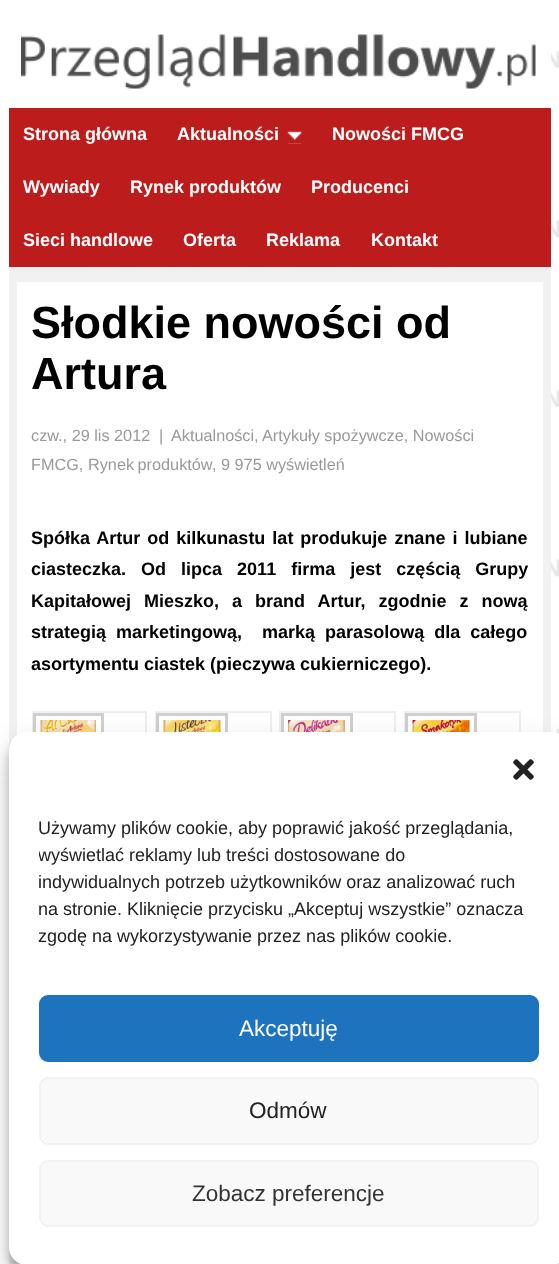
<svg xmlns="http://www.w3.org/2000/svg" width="559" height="1264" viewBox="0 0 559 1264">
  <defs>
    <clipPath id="clip1"><rect x="39" y="815" width="500" height="150"/></clipPath>
  </defs>
  <rect width="100%" height="100%" fill="rgb(255,255,255)"/>
  <image x="551" y="39" width="8" height="1225" href="pic1.png"/>
  <image x="21" y="34" width="515" height="55" href="pic2.png"/>
  <rect x="9" y="108" width="542" height="159" fill="rgb(189,28,28)"/>
  <g font-family="Liberation Sans" font-size="18" font-weight="bold" fill="rgb(255,255,255)">
    <text x="23" y="140">Strona główna</text>
    <text x="177" y="140">Aktualności</text>
  </g>
  <image x="287" y="131" width="15" height="13" href="pic3.png"/>
  <g font-family="Liberation Sans" font-size="18" font-weight="bold" fill="rgb(255,255,255)">
    <text x="332" y="140">Nowości FMCG</text>
    <text x="23" y="193">Wywiady</text>
    <text x="130" y="193">Rynek produktów</text>
    <text x="311" y="193">Producenci</text>
    <text x="23" y="246">Sieci handlowe</text>
    <text x="183" y="246">Oferta</text>
    <text x="266" y="246">Reklama</text>
    <text x="371" y="246">Kontakt</text>
  </g>
  <rect x="9" y="267" width="542" height="997" fill="rgb(241,241,241)"/>
  <rect x="17" y="282" width="526" height="982" fill="rgb(255,255,255)"/>
  <g font-family="Liberation Sans" font-size="45" font-weight="bold" fill="rgb(0,0,0)">
    <text>
      <tspan x="31" y="338">Słodkie nowości od</tspan>
      <tspan x="31" y="389">Artura</tspan>
    </text>
  </g>
  <g font-family="Liberation Sans" font-size="16.25" fill="rgb(153,153,153)">
    <text x="31" y="441">czw., 29 lis 2012</text>
    <text x="159" y="441">|</text>
    <text x="171" y="441">Aktualności,</text>
    <text x="262" y="441">Artykuły spożywcze, Nowości</text>
    <text x="31" y="470">FMCG,</text>
    <text x="88" y="470" word-spacing="-1">Rynek produktów</text>
    <text x="212" y="470">, 9 975 wyświetleń</text>
  </g>
  <g font-family="Liberation Sans" font-size="18" font-weight="bold" fill="rgb(0,0,0)">
    <text xml:space="preserve"><tspan x="31" y="544" word-spacing="2">Spółka Artur od kilkunastu lat produkuje znane i lubiane</tspan><tspan x="31" y="575" word-spacing="10">ciasteczka. Od lipca 2011 firma jest częścią Grupy</tspan><tspan x="31" y="607" word-spacing="8">Kapitałowej Mieszko, a brand Artur, zgodnie z nową</tspan><tspan x="31" y="638" word-spacing="5">strategią marketingową,  marką parasolową dla całego</tspan><tspan x="31" y="670">asortymentu ciastek (pieczywa cukierniczego).</tspan></text>
  </g>
  <rect x="33" y="712" width="113" height="73" fill="none" stroke="rgb(238,238,238)" stroke-width="2"/>
  <rect x="34.5" y="714.5" width="68" height="69" fill="none" stroke="rgb(207,207,207)" stroke-width="3"/>
  <image x="40" y="720" width="56" height="12" href="pic4.png"/>
  <rect x="156" y="712" width="115" height="73" fill="none" stroke="rgb(238,238,238)" stroke-width="2"/>
  <rect x="157.5" y="714.5" width="69" height="69" fill="none" stroke="rgb(207,207,207)" stroke-width="3"/>
  <image x="163" y="720" width="58" height="12" href="pic5.png"/>
  <rect x="280" y="712" width="115" height="73" fill="none" stroke="rgb(238,238,238)" stroke-width="2"/>
  <rect x="282.5" y="714.5" width="69" height="69" fill="none" stroke="rgb(207,207,207)" stroke-width="3"/>
  <image x="288" y="720" width="57" height="12" href="pic6.png"/>
  <rect x="405" y="712" width="115" height="73" fill="none" stroke="rgb(238,238,238)" stroke-width="2"/>
  <rect x="406.5" y="714.5" width="69" height="69" fill="none" stroke="rgb(207,207,207)" stroke-width="3"/>
  <image x="412" y="720" width="58" height="12" href="pic7.png"/>
  <rect x="9" y="741" width="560" height="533" rx="18" fill="rgba(0,0,0,0.23)" filter="blur(4.5px)"/>
  <rect x="9" y="747" width="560" height="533" rx="18" fill="rgba(0,0,0,0.19)" filter="blur(15px)"/>
  <rect x="9" y="732" width="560" height="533" rx="18" fill="rgb(255,255,255)"/>
  <image x="513" y="759" width="21" height="21" href="pic8.png"/>
  <text x="38" y="834" font-family="Liberation Sans" font-size="18" fill="rgb(34,34,34)">Używamy plików cookie, aby poprawić jakość przeglądania,</text>
  <g clip-path="url(#clip1)">
    <text x="38" y="861" font-family="Liberation Sans" font-size="18" fill="rgb(34,34,34)">wyświetlać reklamy lub treści dostosowane do</text>
  </g>
  <g font-family="Liberation Sans" font-size="18" fill="rgb(34,34,34)">
    <text>
      <tspan x="38" y="888">indywidualnych potrzeb użytkowników oraz analizować ruch</tspan>
      <tspan x="38" y="915">na stronie. Kliknięcie przycisku „Akceptuj wszystkie” oznacza</tspan>
      <tspan x="38" y="942">zgodę na wykorzystywanie przez nas plików cookie.</tspan>
    </text>
  </g>
  <rect x="40" y="996" width="498" height="65" rx="8" fill="rgb(30,115,190)" stroke="rgb(30,115,190)" stroke-width="2"/>
  <text x="239" y="1036" font-family="Liberation Sans" font-size="22.5" fill="rgb(255,255,255)">Akceptuję</text>
  <rect x="40" y="1078" width="498" height="66" rx="8" fill="rgb(249,249,249)" stroke="rgb(242,242,242)" stroke-width="2"/>
  <text x="249" y="1118" font-family="Liberation Sans" font-size="22.5" fill="rgb(34,34,34)">Odmów</text>
  <rect x="40" y="1161" width="498" height="65" rx="8" fill="rgb(249,249,249)" stroke="rgb(242,242,242)" stroke-width="2"/>
  <text x="192" y="1201" font-family="Liberation Sans" font-size="22.5" fill="rgb(51,51,51)">Zobacz preferencje</text>
</svg>
